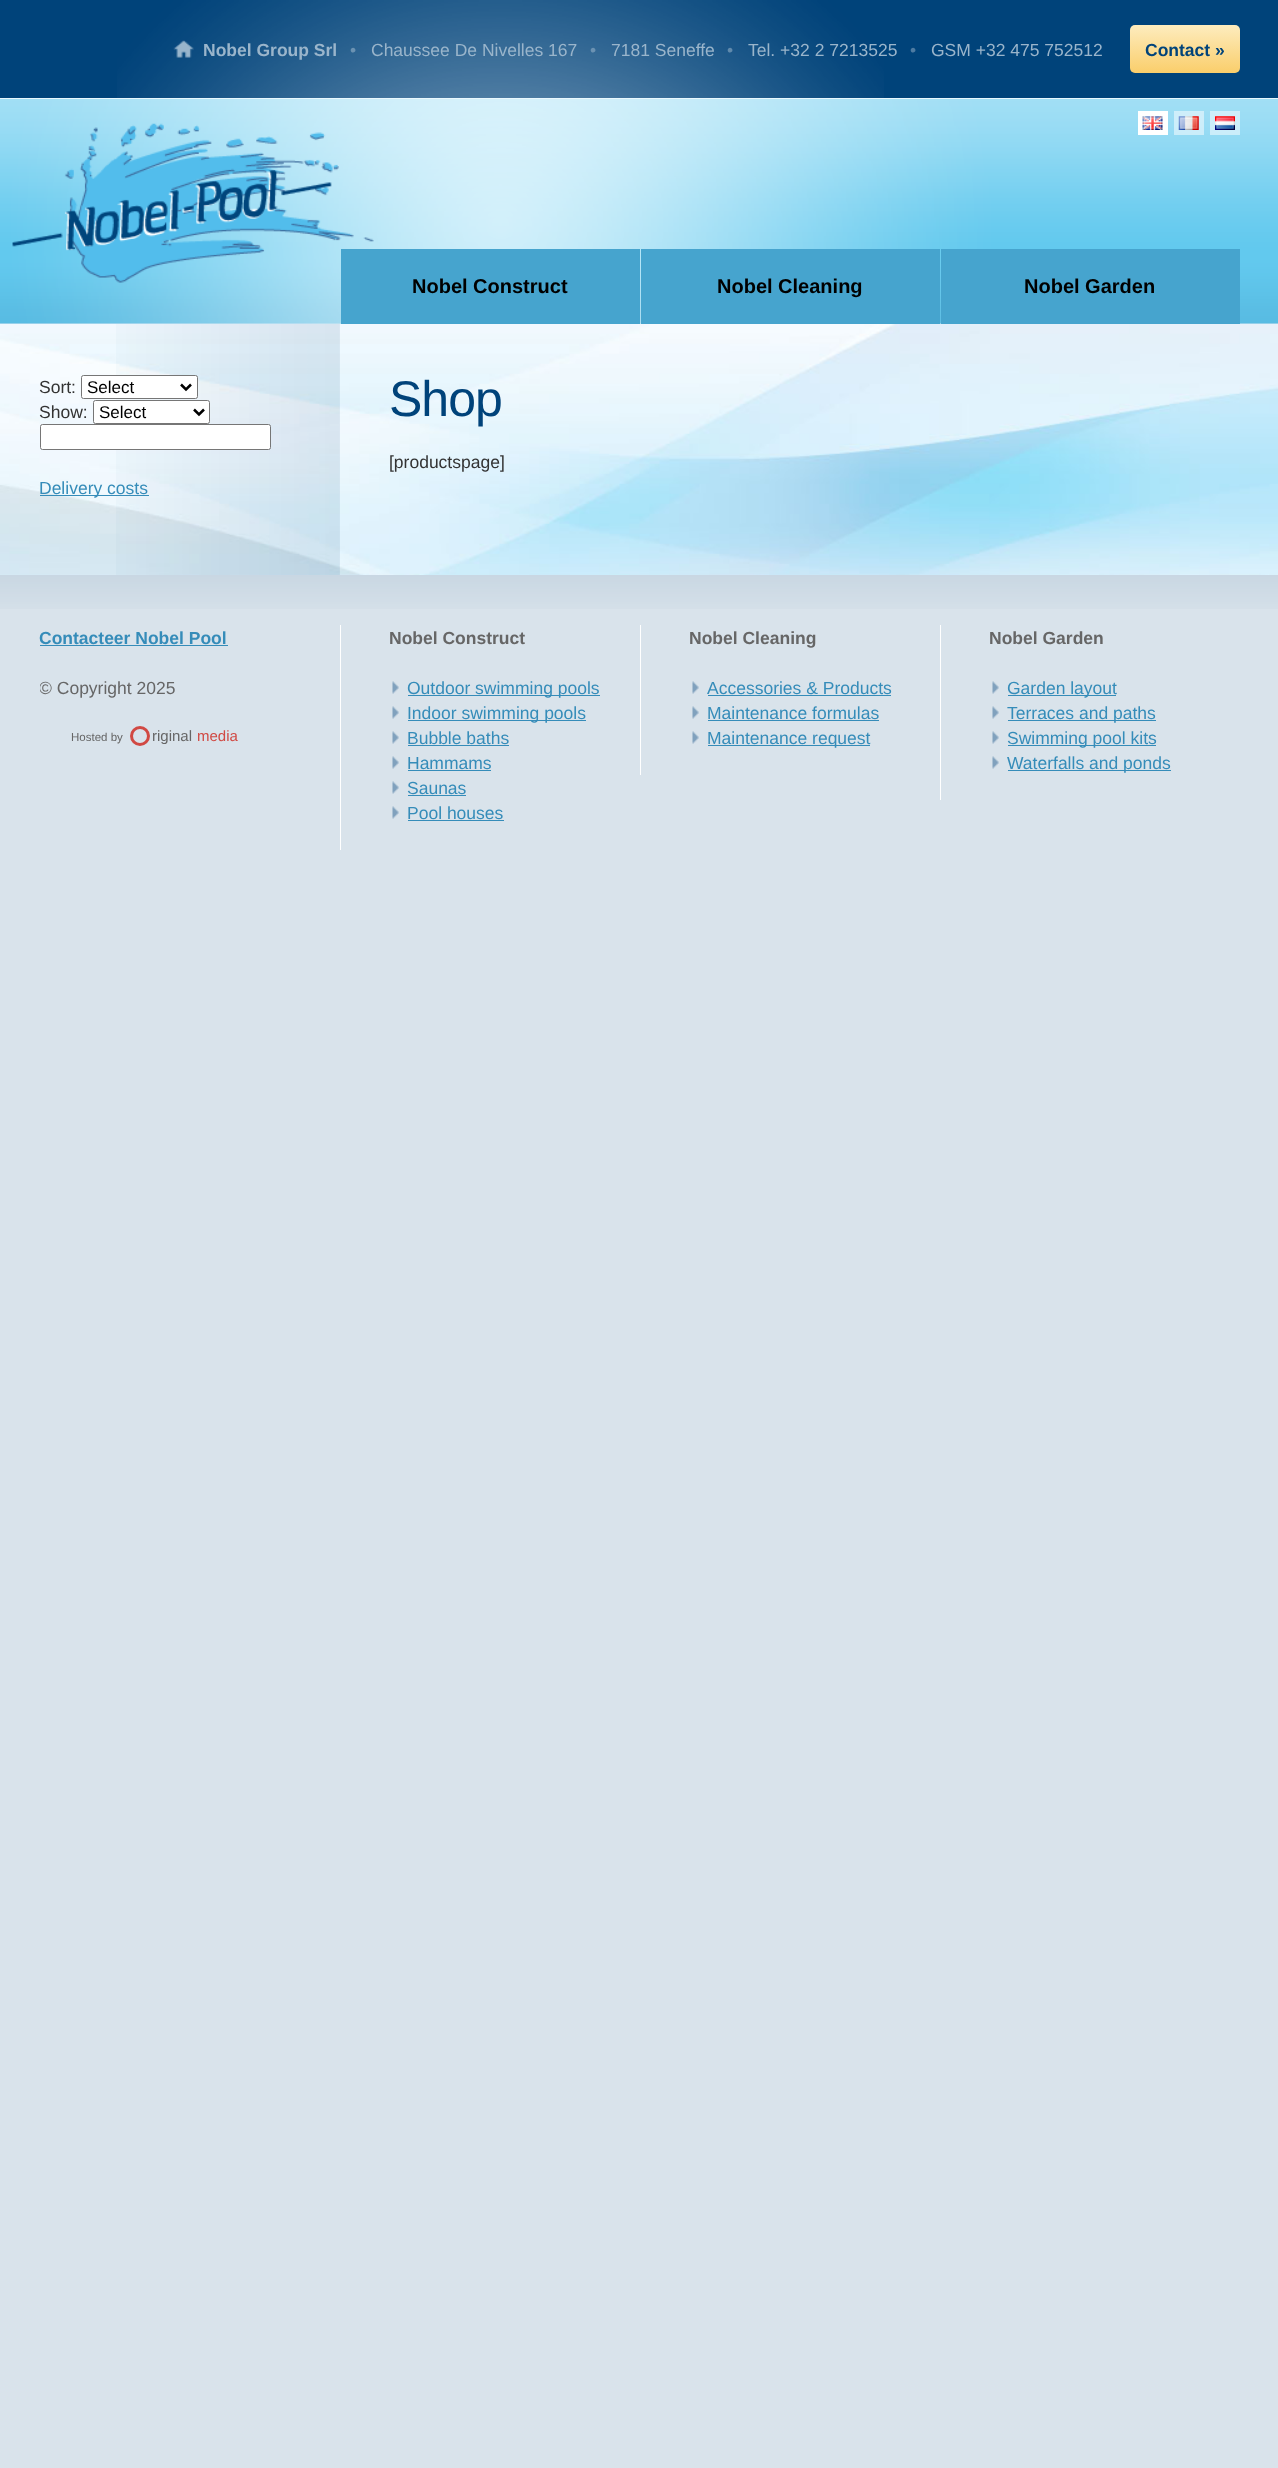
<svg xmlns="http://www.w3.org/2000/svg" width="1278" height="2468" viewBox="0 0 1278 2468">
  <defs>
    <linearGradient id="g1" gradientUnits="userSpaceOnUse" x1="1130" y1="25" x2="1130" y2="73"><stop offset="0" stop-color="rgb(253,236,190)"/><stop offset="1" stop-color="rgb(250,206,107)"/></linearGradient>
    <clipPath id="clip1"><rect x="40" y="575" width="1200" height="325"/></clipPath>
  </defs>
  <rect width="100%" height="100%" fill="rgb(217,227,235)"/>
  <rect x="0" y="0" width="1278" height="98" fill="rgb(0,67,122)"/>
  <image x="117" y="0" width="767" height="98" href="pic1.png"/>
  <rect x="0" y="98" width="1278" height="1" fill="rgb(255,255,255)"/>
  <image x="173" y="40" width="21" height="18" href="pic2.png"/>
  <text x="203" y="56" font-family="Liberation Sans" font-size="17.5" font-weight="bold" fill="rgb(154,181,203)">Nobel Group Srl</text>
  <text x="350" y="56" font-family="Liberation Sans" font-size="17.5" fill="rgb(107,146,178)">•</text>
  <text x="371" y="56" font-family="Liberation Sans" font-size="17.5" fill="rgb(154,181,203)">Chaussee De Nivelles 167</text>
  <text x="590" y="56" font-family="Liberation Sans" font-size="17.5" fill="rgb(107,146,178)">•</text>
  <text x="611" y="56" font-family="Liberation Sans" font-size="17.5" fill="rgb(154,181,203)">7181 Seneffe</text>
  <text x="727" y="56" font-family="Liberation Sans" font-size="17.5" fill="rgb(96,138,172)">•</text>
  <text x="748" y="56" font-family="Liberation Sans" font-size="17.5" fill="rgb(154,181,203)">Tel. +32 2 7213525</text>
  <text x="910" y="56" font-family="Liberation Sans" font-size="17.5" fill="rgb(77,123,162)">•</text>
  <text x="931" y="56" font-family="Liberation Sans" font-size="17.5" fill="rgb(154,181,203)">GSM +32 475 752512</text>
  <rect x="1130" y="25" width="110" height="48" rx="5" fill="url(#g1)"/>
  <text x="1145" y="56" font-family="Liberation Sans" font-size="17.5" font-weight="bold" fill="rgb(0,67,122)">Contact »</text>
  <image x="0" y="98" width="1278" height="226" href="pic3.png"/>
  <image x="12" y="123" width="362" height="160" href="pic4.png"/>
  <rect x="1138" y="111" width="30" height="24" fill="rgb(255,255,255)"/>
  <image x="1142" y="116" width="21" height="14" href="pic5.png"/>
  <rect x="1174" y="111" width="30" height="24" fill="rgba(255,255,255,0.5)"/>
  <image x="1178" y="116" width="21" height="14" href="pic6.png"/>
  <rect x="1210" y="111" width="30" height="24" fill="rgba(255,255,255,0.5)"/>
  <image x="1215" y="116" width="20" height="14" href="pic7.png"/>
  <image x="0" y="323" width="1278" height="252" href="pic8.png"/>
  <rect x="341" y="249" width="299" height="75" fill="rgb(70,164,206)"/>
  <text x="412" y="293" font-family="Liberation Sans" font-size="20" font-weight="bold" fill="rgb(0,0,0)">Nobel Construct</text>
  <rect x="641" y="249" width="299" height="75" fill="rgb(70,164,206)"/>
  <text x="717" y="293" font-family="Liberation Sans" font-size="20" font-weight="bold" fill="rgb(0,0,0)">Nobel Cleaning</text>
  <rect x="941" y="249" width="299" height="75" fill="rgb(70,164,206)"/>
  <text x="1024" y="293" font-family="Liberation Sans" font-size="20" font-weight="bold" fill="rgb(0,0,0)">Nobel Garden</text>
  <image x="116" y="324" width="224" height="251" href="pic9.png"/>
  <text x="39" y="393" font-family="Liberation Sans" font-size="17.5" fill="rgb(51,51,51)">Sort:</text>
  <rect x="81.5" y="375.5" width="116" height="23" rx="2" fill="rgb(255,255,255)" stroke="rgb(118,118,118)"/>
  <path d="M181 384.5L186 389.5L191 384.5" fill="none" stroke="rgb(0,0,0)" stroke-width="2.5"/>
  <text x="87" y="393" font-family="Liberation Sans" font-size="17" fill="rgb(0,0,0)">Select</text>
  <text x="39" y="418" font-family="Liberation Sans" font-size="17.5" fill="rgb(51,51,51)">Show:</text>
  <rect x="93.5" y="400.5" width="116" height="23" rx="2" fill="rgb(255,255,255)" stroke="rgb(118,118,118)"/>
  <path d="M194 409.5L199 414.5L204 409.5" fill="none" stroke="rgb(0,0,0)" stroke-width="2.5"/>
  <text x="99" y="418" font-family="Liberation Sans" font-size="17" fill="rgb(0,0,0)">Select</text>
  <rect x="40.5" y="424.5" width="230" height="25" rx="2" fill="rgb(255,255,255)" stroke="rgb(118,118,118)"/>
  <rect x="40" y="495" width="109" height="1" fill="rgb(53,140,185)"/>
  <text x="39" y="494" font-family="Liberation Sans" font-size="17.5" fill="rgb(53,140,185)">Delivery costs</text>
  <text x="389" y="416" font-family="Liberation Sans" font-size="50" letter-spacing="-1" fill="rgb(0,67,122)">Shop</text>
  <text x="389" y="468" font-family="Liberation Sans" font-size="17.5" fill="rgb(51,51,51)">[productspage]</text>
  <image x="0" y="575" width="1278" height="34" href="pic10.png"/>
  <text x="39" y="644" font-family="Liberation Sans" font-size="17.5" font-weight="bold" fill="rgb(53,140,185)">Contacteer Nobel Pool</text>
  <rect x="40" y="645" width="188" height="1" fill="rgb(53,140,185)"/>
  <g clip-path="url(#clip1)">
    <text x="39" y="694" font-family="Liberation Sans" font-size="17.5" fill="rgb(102,102,102)">© Copyright 2025</text>
  </g>
  <text x="71" y="741" font-family="Liberation Sans" font-size="11.5" fill="rgb(102,102,102)">Hosted by</text>
  <circle cx="140" cy="736" r="8.5" fill="none" stroke="rgb(209,73,67)" stroke-width="3"/>
  <text x="152" y="741" font-family="Liberation Sans" font-size="15" fill="rgb(102,102,102)">riginal</text>
  <text x="197" y="741" font-family="Liberation Sans" font-size="15" fill="rgb(209,73,67)">media</text>
  <rect x="340" y="625" width="1" height="225" fill="rgb(255,255,255)"/>
  <text x="389" y="644" font-family="Liberation Sans" font-size="17.5" font-weight="bold" fill="rgb(102,102,102)">Nobel Construct</text>
  <image x="392" y="681" width="7" height="13" href="pic11.png"/>
  <rect x="408" y="695" width="192" height="1" fill="rgb(53,140,185)"/>
  <text x="407" y="694" font-family="Liberation Sans" font-size="17.5" fill="rgb(53,140,185)">Outdoor swimming pools</text>
  <image x="392" y="706" width="7" height="13" href="pic11.png"/>
  <rect x="408" y="720" width="178" height="1" fill="rgb(53,140,185)"/>
  <text x="407" y="719" font-family="Liberation Sans" font-size="17.5" fill="rgb(53,140,185)">Indoor swimming pools</text>
  <image x="392" y="731" width="7" height="13" href="pic11.png"/>
  <text x="407" y="744" font-family="Liberation Sans" font-size="17.5" fill="rgb(53,140,185)">Bubble baths</text>
  <rect x="408" y="745" width="101" height="1" fill="rgb(53,140,185)"/>
  <image x="392" y="756" width="7" height="13" href="pic11.png"/>
  <text x="407" y="769" font-family="Liberation Sans" font-size="17.5" fill="rgb(53,140,185)">Hammams</text>
  <rect x="408" y="770" width="83" height="1" fill="rgb(53,140,185)"/>
  <image x="392" y="781" width="7" height="13" href="pic12.png"/>
  <text x="407" y="794" font-family="Liberation Sans" font-size="17.5" fill="rgb(53,140,185)">Saunas</text>
  <rect x="408" y="795" width="58" height="1" fill="rgb(53,140,185)"/>
  <image x="392" y="806" width="7" height="13" href="pic11.png"/>
  <text x="407" y="819" font-family="Liberation Sans" font-size="17.5" fill="rgb(53,140,185)">Pool houses</text>
  <rect x="408" y="820" width="96" height="1" fill="rgb(53,140,185)"/>
  <rect x="640" y="625" width="1" height="150" fill="rgb(255,255,255)"/>
  <text x="689" y="644" font-family="Liberation Sans" font-size="17.5" font-weight="bold" fill="rgb(102,102,102)">Nobel Cleaning</text>
  <image x="692" y="681" width="7" height="13" href="pic13.png"/>
  <text x="707" y="694" font-family="Liberation Sans" font-size="17.5" fill="rgb(53,140,185)">Accessories &amp; Products</text>
  <rect x="708" y="695" width="183" height="1" fill="rgb(53,140,185)"/>
  <image x="692" y="706" width="7" height="13" href="pic13.png"/>
  <text x="707" y="719" font-family="Liberation Sans" font-size="17.5" fill="rgb(53,140,185)">Maintenance formulas</text>
  <rect x="708" y="720" width="171" height="1" fill="rgb(53,140,185)"/>
  <image x="692" y="731" width="7" height="13" href="pic13.png"/>
  <rect x="708" y="745" width="162" height="1" fill="rgb(53,140,185)"/>
  <text x="707" y="744" font-family="Liberation Sans" font-size="17.5" fill="rgb(53,140,185)">Maintenance request</text>
  <rect x="940" y="625" width="1" height="175" fill="rgb(255,255,255)"/>
  <text x="989" y="644" font-family="Liberation Sans" font-size="17.5" font-weight="bold" fill="rgb(102,102,102)">Nobel Garden</text>
  <image x="992" y="681" width="7" height="13" href="pic11.png"/>
  <rect x="1008" y="695" width="108" height="1" fill="rgb(53,140,185)"/>
  <text x="1007" y="694" font-family="Liberation Sans" font-size="17.5" fill="rgb(53,140,185)">Garden layout</text>
  <image x="992" y="706" width="7" height="13" href="pic11.png"/>
  <rect x="1008" y="720" width="148" height="1" fill="rgb(53,140,185)"/>
  <text x="1007" y="719" font-family="Liberation Sans" font-size="17.5" fill="rgb(53,140,185)">Terraces and paths</text>
  <image x="992" y="731" width="7" height="13" href="pic11.png"/>
  <rect x="1008" y="745" width="148" height="1" fill="rgb(53,140,185)"/>
  <text x="1007" y="744" font-family="Liberation Sans" font-size="17.5" fill="rgb(53,140,185)">Swimming pool kits</text>
  <image x="992" y="756" width="7" height="13" href="pic11.png"/>
  <rect x="1008" y="770" width="163" height="1" fill="rgb(53,140,185)"/>
  <text x="1007" y="769" font-family="Liberation Sans" font-size="17.5" fill="rgb(53,140,185)">Waterfalls and ponds</text>
</svg>
